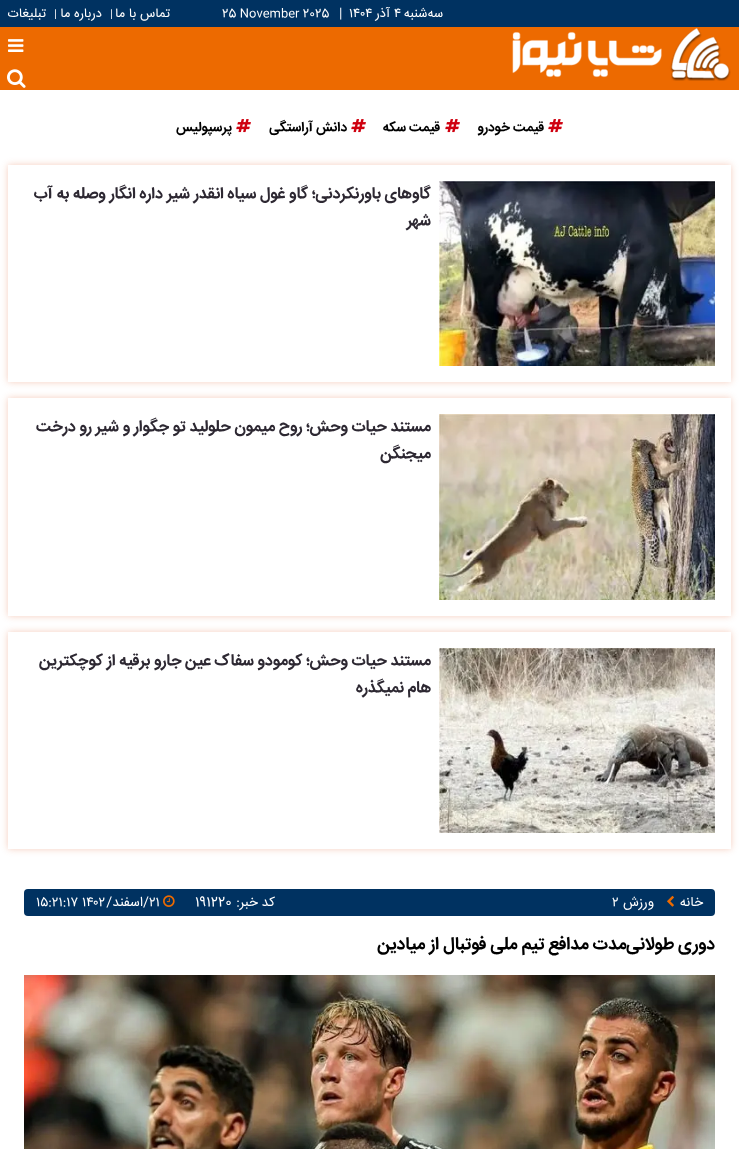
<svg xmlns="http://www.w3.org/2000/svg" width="739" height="1149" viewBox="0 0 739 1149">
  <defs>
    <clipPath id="clip1"><path d="M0 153H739V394H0ZM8 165H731V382H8Z" clip-rule="evenodd"/></clipPath>
    <clipPath id="clip2"><path d="M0 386H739V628H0ZM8 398H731V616H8Z" clip-rule="evenodd"/></clipPath>
    <clipPath id="clip3"><path d="M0 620H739V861H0ZM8 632H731V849H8Z" clip-rule="evenodd"/></clipPath>
  </defs>
  <rect width="100%" height="100%" fill="rgb(255,255,255)"/>
  <rect x="0" y="0" width="739" height="27" fill="rgb(0,50,97)"/>
  <text x="443" y="17" font-family="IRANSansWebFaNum" font-size="13" direction="rtl" fill="rgb(255,255,255)">سه‌شنبه</text>
  <text x="394" y="17" font-family="IRANSansWebFaNum" font-size="13" fill="rgb(255,255,255)">۴</text>
  <text x="390" y="17" font-family="IRANSansWebFaNum" font-size="13" direction="rtl" fill="rgb(255,255,255)">آذر</text>
  <g font-family="IRANSansWebFaNum" font-size="13" fill="rgb(255,255,255)">
    <text x="349" y="17">۱۴۰۴</text>
    <text x="339" y="17">|</text>
  </g>
  <text x="222" y="17" font-family="IRANSansWebFaNum" font-size="12" fill="rgb(255,255,255)">25 November 2025</text>
  <text x="170" y="17" font-family="IRANSansWebFaNum" font-size="13" direction="rtl" fill="rgb(255,255,255)">تماس با ما</text>
  <text x="110" y="17" font-family="IRANSansWebFaNum" font-size="11" fill="rgb(255,255,255)">|</text>
  <text x="102" y="17" font-family="IRANSansWebFaNum" font-size="13" direction="rtl" fill="rgb(255,255,255)">درباره ما</text>
  <text x="54" y="17" font-family="IRANSansWebFaNum" font-size="11" fill="rgb(255,255,255)">|</text>
  <text x="46" y="17" font-family="IRANSansWebFaNum" font-size="13" direction="rtl" fill="rgb(255,255,255)">تبلیغات</text>
  <rect x="0" y="27" width="739" height="63" fill="rgb(237,106,0)"/>
  <image x="7" y="69" width="19" height="19" href="pic1.png"/>
  <image x="512" y="28" width="219" height="53" href="pic2.png"/>
  <image x="8" y="39" width="16" height="13" href="pic3.png"/>
  <image x="548" y="119" width="15" height="14" href="pic4.png"/>
  <text x="544" y="131" font-family="IRANSansWebFaNum" font-size="13.5" font-weight="bold" direction="rtl" fill="rgb(0,0,0)">قیمت خودرو</text>
  <image x="445" y="119" width="15" height="14" href="pic4.png"/>
  <text x="440" y="131" font-family="IRANSansWebFaNum" font-size="13.5" font-weight="bold" direction="rtl" fill="rgb(0,0,0)">قیمت سکه</text>
  <image x="351" y="119" width="15" height="14" href="pic4.png"/>
  <text x="347" y="131" font-family="IRANSansWebFaNum" font-size="13.5" font-weight="bold" direction="rtl" fill="rgb(0,0,0)">دانش آراستگی</text>
  <image x="236" y="119" width="15" height="14" href="pic4.png"/>
  <text x="232" y="131" font-family="IRANSansWebFaNum" font-size="13.5" font-weight="bold" direction="rtl" fill="rgb(0,0,0)">پرسپولیس</text>
  <g clip-path="url(#clip1)">
    <rect x="8" y="165" width="723" height="217" fill="rgba(215,60,0,0.26)" filter="blur(3.5px)"/>
  </g>
  <image x="439" y="181" width="276" height="185" href="pic5.png"/>
  <g font-family="IRANSansWebFaNum" font-size="16" font-weight="bold" direction="rtl" fill="rgb(45,40,50)">
    <text>
      <tspan x="431" y="198">گاوهای باورنکردنی؛ گاو غول سیاه انقدر شیر داره انگار وصله به آب</tspan>
      <tspan x="431" y="225">شهر</tspan>
    </text>
  </g>
  <g clip-path="url(#clip2)">
    <rect x="8" y="398" width="723" height="218" fill="rgba(215,60,0,0.26)" filter="blur(3.5px)"/>
  </g>
  <image x="439" y="414" width="276" height="186" href="pic6.png"/>
  <g font-family="IRANSansWebFaNum" font-size="16" font-weight="bold" direction="rtl" fill="rgb(45,40,50)">
    <text>
      <tspan x="431" y="431">مستند حیات وحش؛ روح میمون حلولید تو جگوار و شیر رو درخت</tspan>
      <tspan x="431" y="458">میجنگن</tspan>
    </text>
  </g>
  <g clip-path="url(#clip3)">
    <rect x="8" y="632" width="723" height="217" fill="rgba(215,60,0,0.26)" filter="blur(3.5px)"/>
  </g>
  <image x="439" y="648" width="276" height="185" href="pic7.png"/>
  <g font-family="IRANSansWebFaNum" font-size="16" font-weight="bold" direction="rtl" fill="rgb(45,40,50)">
    <text>
      <tspan x="431" y="665">مستند حیات وحش؛ کومودو سفاک عین جارو برقیه از کوچکترین</tspan>
      <tspan x="431" y="692">هام نمیگذره</tspan>
    </text>
  </g>
  <rect x="24" y="889" width="691" height="27" rx="4" fill="rgb(0,50,97)"/>
  <text x="703" y="906" font-family="IRANSansWebFaNum" font-size="13.5" direction="rtl" fill="rgb(255,255,255)">خانه</text>
  <image x="667" y="895" width="7" height="12" href="pic8.png"/>
  <text x="654" y="906" font-family="IRANSansWebFaNum" font-size="13.5" direction="rtl" fill="rgb(255,255,255)">ورزش</text>
  <text x="612" y="906" font-family="IRANSansWebFaNum" font-size="13.5" fill="rgb(255,255,255)">۲</text>
  <text x="275" y="906" font-family="IRANSansWebFaNum" font-size="13.5" direction="rtl" fill="rgb(255,255,255)">کد خبر:</text>
  <text x="195" y="906" font-family="IRANSansWebFaNum" font-size="13.5" fill="rgb(255,255,255)">191220</text>
  <image x="163" y="895" width="12" height="12" href="pic9.png"/>
  <text x="149" y="906" font-family="IRANSansWebFaNum" font-size="13.5" fill="rgb(255,255,255)">۲۱</text>
  <text x="149" y="906" font-family="IRANSansWebFaNum" font-size="13.5" direction="rtl" fill="rgb(255,255,255)">/اسفند/</text>
  <text x="36" y="906" font-family="IRANSansWebFaNum" font-size="13.5" fill="rgb(255,255,255)">۱۵:۲۱:۱۷ ۱۴۰۲</text>
  <text x="715" y="949" font-family="IRANSansWebFaNum" font-size="17.6" font-weight="bold" direction="rtl" fill="rgb(0,0,0)">دوری طولانی‌مدت مدافع تیم ملی فوتبال از میادین</text>
  <image x="24" y="975" width="691" height="174" href="pic10.png"/>
</svg>
